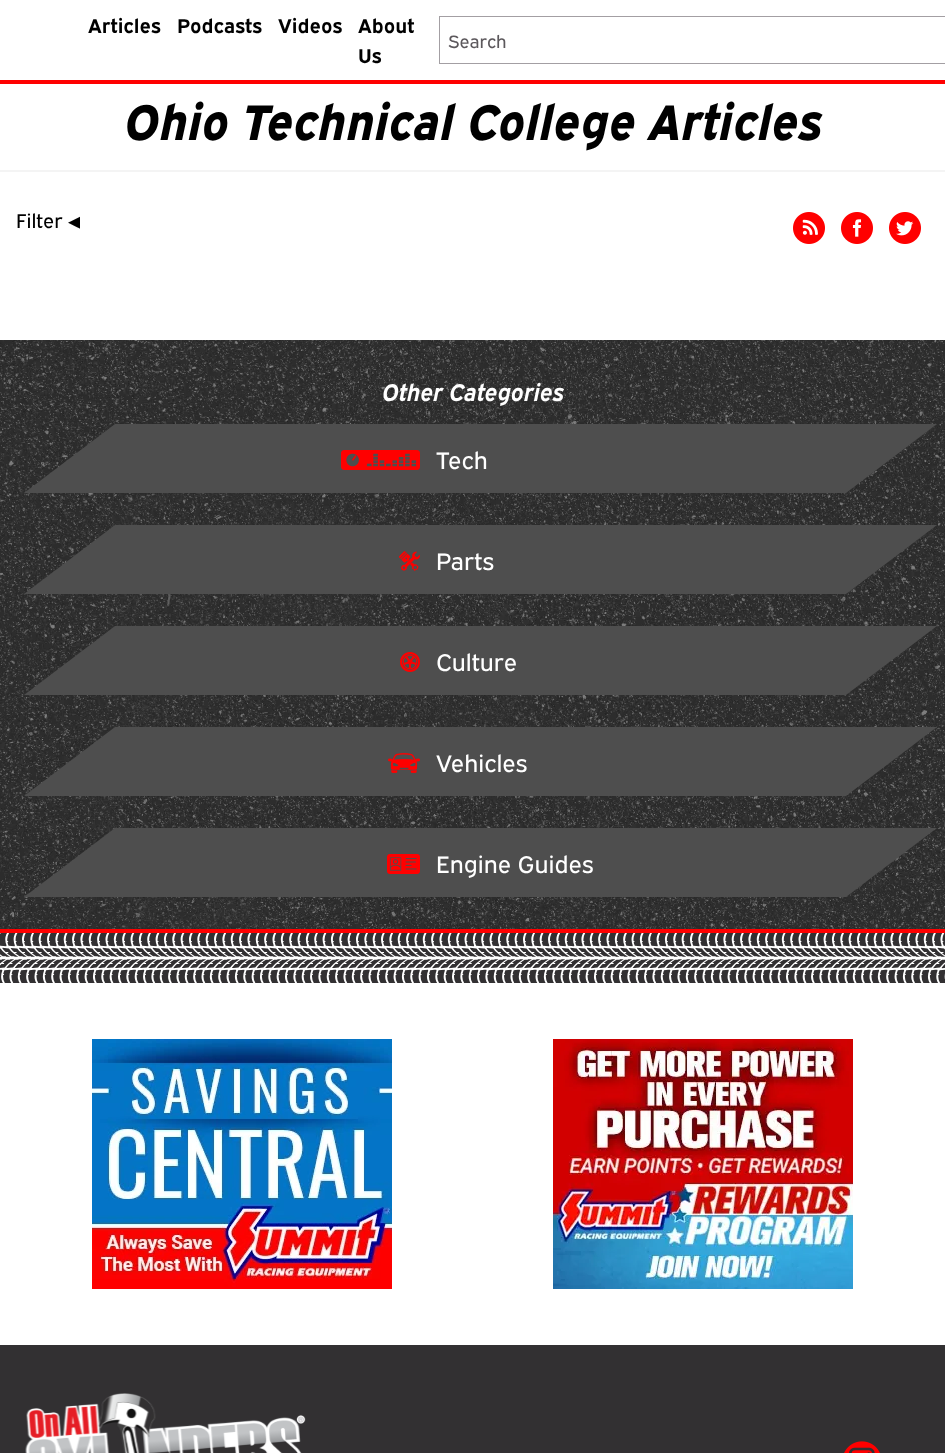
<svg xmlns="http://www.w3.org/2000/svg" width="945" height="1453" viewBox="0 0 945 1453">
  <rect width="100%" height="100%" fill="rgb(255,255,255)"/>
  <rect x="0" y="80" width="945" height="4" fill="rgb(255,0,0)"/>
  <g font-family="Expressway" font-size="20" font-weight="bold" fill="rgb(0,0,0)">
    <text x="88" y="33">Articles</text>
    <text x="177" y="33">Podcasts</text>
    <text x="278" y="33">Videos</text>
    <text>
      <tspan x="358" y="33">About</tspan>
      <tspan x="358" y="63">Us</tspan>
    </text>
  </g>
  <rect x="439.5" y="16.5" width="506" height="47" fill="none" stroke="rgb(163,159,163)"/>
  <text x="448" y="48" font-family="Expressway" font-size="18" fill="rgb(92,88,92)">Search</text>
  <text x="124" y="140" font-family="Expressway" font-size="50" font-weight="800" font-style="italic" fill="rgb(0,0,0)">Ohio Technical College Articles</text>
  <rect x="0" y="170" width="945" height="2" fill="rgb(244,244,244)"/>
  <text x="16" y="228" font-family="Expressway" font-size="20" fill="rgb(0,0,0)">Filter</text>
  <text x="68" y="228" font-family="DejaVu Sans Mono" font-size="20" fill="rgb(0,0,0)">◀︎</text>
  <image x="793" y="212" width="32" height="32" href="pic1.png"/>
  <image x="841" y="212" width="32" height="32" href="pic2.png"/>
  <image x="889" y="212" width="32" height="32" href="pic3.png"/>
  <image x="0" y="340" width="945" height="589" href="pic4.png"/>
  <rect x="0" y="929" width="945" height="4" fill="rgb(255,0,0)"/>
  <text x="382" y="401" font-family="Expressway" font-size="24" font-weight="bold" font-style="italic" fill="rgb(255,255,255)">Other Categories</text>
  <path d="M115 424L24 493H846L937 424Z" fill="rgb(78,78,78)"/>
  <image x="341" y="450" width="79" height="20" href="pic5.png"/>
  <text x="436" y="469" font-family="Expressway" font-size="24" fill="rgb(255,255,255)">Tech</text>
  <path d="M115 525L24 594H846L937 525Z" fill="rgb(78,78,78)"/>
  <image x="399" y="551" width="21" height="20" href="pic6.png"/>
  <text x="436" y="570" font-family="Expressway" font-size="24" fill="rgb(255,255,255)">Parts</text>
  <path d="M115 626L24 695H846L937 626Z" fill="rgb(78,78,78)"/>
  <image x="400" y="652" width="20" height="20" href="pic7.png"/>
  <text x="436" y="671" font-family="Expressway" font-size="24" fill="rgb(255,255,255)">Culture</text>
  <path d="M115 727L24 796H846L937 727Z" fill="rgb(78,78,78)"/>
  <image x="388" y="753" width="32" height="20" href="pic8.png"/>
  <text x="436" y="772" font-family="Expressway" font-size="24" fill="rgb(255,255,255)">Vehicles</text>
  <path d="M115 828L24 897H846L937 828Z" fill="rgb(78,78,78)"/>
  <image x="387" y="854" width="33" height="20" href="pic9.png"/>
  <text x="436" y="873" font-family="Expressway" font-size="24" fill="rgb(255,255,255)">Engine Guides</text>
  <rect x="0" y="1345" width="945" height="108" fill="rgb(50,48,50)"/>
  <image x="0" y="933" width="945" height="50" href="pic10.png"/>
  <image x="92" y="1039" width="300" height="250" href="pic11.png"/>
  <image x="553" y="1039" width="300" height="250" href="pic12.png"/>
  <image x="25" y="1393" width="281" height="60" href="pic13.png"/>
  <image x="844" y="1441" width="36" height="12" href="pic14.png"/>
</svg>
